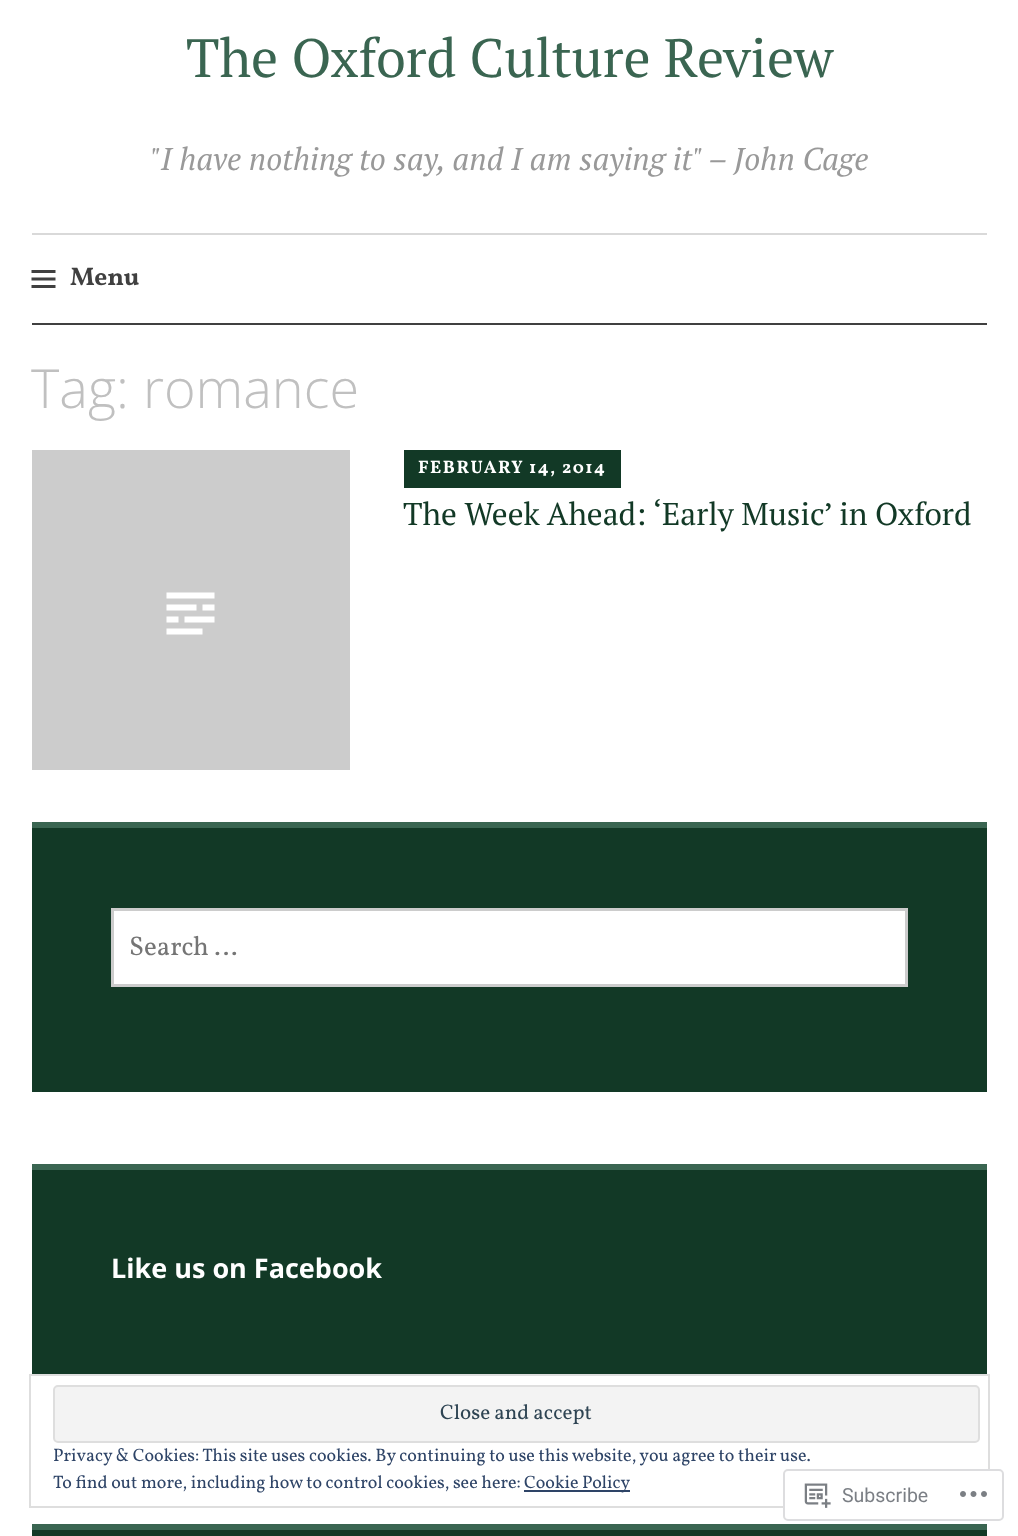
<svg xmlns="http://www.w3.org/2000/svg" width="1018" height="1536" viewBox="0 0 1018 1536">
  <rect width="100%" height="100%" fill="rgb(255,255,255)"/>
  <text x="186" y="77" font-family="PT Serif" font-size="54" fill="rgb(58,101,81)">The Oxford Culture Review</text>
  <text x="150" y="170" font-family="PT Serif" font-size="31.5" font-style="italic" fill="rgb(153,153,153)">"I have nothing to say, and I am saying it" – John Cage</text>
  <rect x="32" y="233" width="955" height="2" fill="rgb(217,217,217)"/>
  <rect x="32" y="323" width="955" height="2" fill="rgb(64,64,64)"/>
  <image x="31" y="270" width="25" height="18" href="pic1.png"/>
  <text x="70" y="285" font-family="Vollkorn" font-size="25.5" font-weight="bold" fill="rgb(64,64,64)">Menu</text>
  <text x="31" y="408" font-family="Open Sans" font-size="54" font-weight="300" fill="rgb(192,192,192)">Tag: romance</text>
  <rect x="32" y="450" width="318" height="320" fill="rgb(204,204,204)"/>
  <image x="166" y="592" width="49" height="43" href="pic2.png"/>
  <rect x="404" y="450" width="217" height="38" fill="rgb(18,57,38)"/>
  <text x="418" y="473" font-family="Vollkorn" font-size="18" font-weight="bold" letter-spacing="1.5" fill="rgb(255,255,255)">FEBRUARY 14, 2014</text>
  <text x="403" y="525" font-family="PT Serif" font-size="31.5" fill="rgb(18,57,38)">The Week Ahead: ‘Early Music’ in Oxford</text>
  <rect x="32" y="828" width="955" height="264" fill="rgb(18,57,38)"/>
  <rect x="32" y="822" width="955" height="6" fill="rgb(58,101,81)"/>
  <rect x="112.5" y="909.5" width="794" height="76" fill="rgb(255,255,255)" stroke="rgb(204,204,204)" stroke-width="3"/>
  <text x="129" y="955" font-family="Vollkorn" font-size="27" fill="rgb(117,117,117)">Search …</text>
  <rect x="32" y="1170" width="955" height="204" fill="rgb(18,57,38)"/>
  <rect x="32" y="1164" width="955" height="6" fill="rgb(58,101,81)"/>
  <text x="111" y="1278" font-family="Open Sans" font-size="27" font-weight="bold" fill="rgb(255,255,255)">Like us on Facebook</text>
  <rect x="32" y="1530" width="955" height="6" fill="rgb(18,57,38)"/>
  <rect x="32" y="1524" width="955" height="6" fill="rgb(58,101,81)"/>
  <rect x="30" y="1375" width="959" height="132" fill="none" stroke="rgb(222,222,222)" stroke-width="2"/>
  <rect x="54" y="1386" width="925" height="56" rx="4" fill="rgb(243,243,243)" stroke="rgb(222,222,222)" stroke-width="2"/>
  <text x="440" y="1419" font-family="Vollkorn" font-size="21" fill="rgb(46,68,83)">Close and accept</text>
  <g font-family="Vollkorn" font-size="18" fill="rgb(46,68,103)">
    <text>
      <tspan x="53" y="1461">Privacy &amp; Cookies: This site uses cookies. By continuing to use this website, you agree to their use.</tspan>
      <tspan x="53" y="1488">To find out more, including how to control cookies, see here:</tspan>
    </text>
  </g>
  <rect x="524" y="1490" width="106" height="2" fill="rgb(46,68,103)"/>
  <text x="524" y="1488" font-family="Vollkorn" font-size="18" fill="rgb(46,68,103)">Cookie Policy</text>
  <rect x="784" y="1470" width="219" height="50" rx="4" fill="rgba(255,255,255,0.98)" stroke="rgb(221,221,223)" stroke-width="2"/>
  <image x="804" y="1483" width="27" height="25" href="pic3.png"/>
  <text x="842" y="1502" font-family="Roboto" font-size="19.5" fill="rgb(123,127,133)">Subscribe</text>
  <image x="960" y="1491" width="27" height="6" href="pic4.png"/>
</svg>
